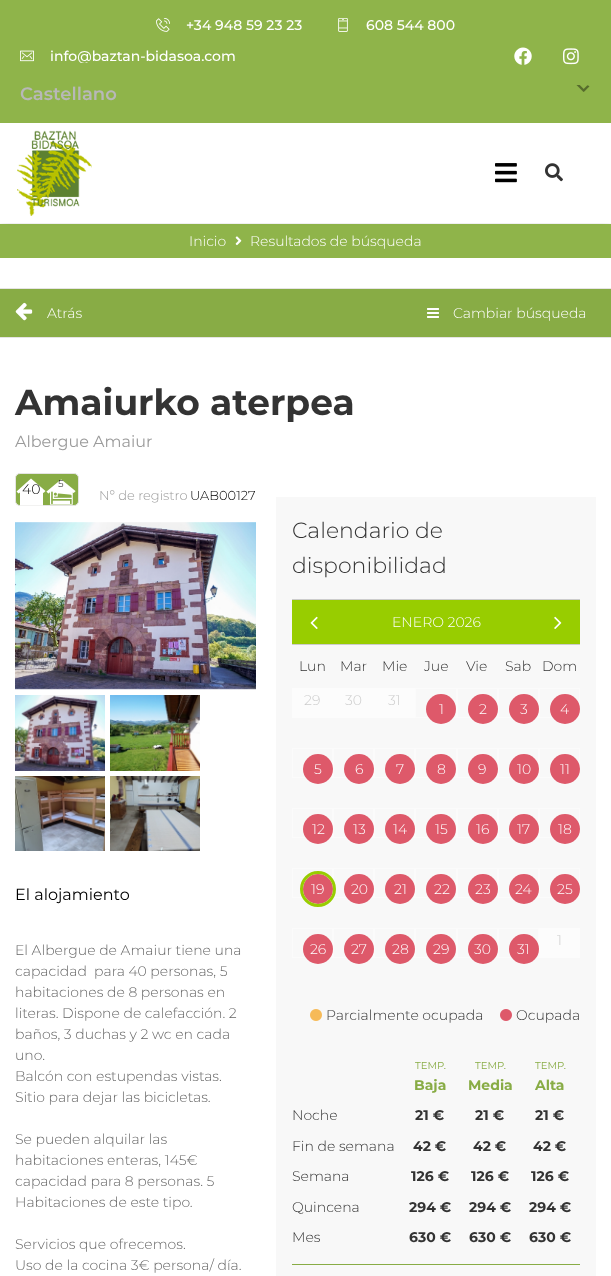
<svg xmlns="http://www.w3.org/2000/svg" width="611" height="1276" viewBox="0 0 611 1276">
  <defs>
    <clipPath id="clip1"><rect x="20" y="49" width="215" height="14"/></clipPath>
    <clipPath id="clip2"><rect x="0" y="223" width="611" height="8"/></clipPath>
  </defs>
  <rect width="100%" height="100%" fill="rgb(255,255,255)"/>
  <rect x="0" y="0" width="611" height="123" fill="rgb(143,180,74)"/>
  <image x="156" y="18" width="14" height="14" href="pic1.png"/>
  <text x="186" y="30" font-family="Montserrat" font-size="14" font-weight="500" fill="rgb(255,255,255)">+34 948 59 23 23</text>
  <image x="338" y="18" width="10" height="14" href="pic2.png"/>
  <text x="366" y="30" font-family="Montserrat" font-size="14" font-weight="500" fill="rgb(255,255,255)">608 544 800</text>
  <image x="20" y="50" width="14" height="12" href="pic3.png"/>
  <g clip-path="url(#clip1)">
    <text x="50" y="61" font-family="Montserrat" font-size="14" font-weight="500" fill="rgb(255,255,255)">info@baztan-bidasoa.com</text>
  </g>
  <image x="514" y="47" width="18" height="18" href="pic4.png"/>
  <image x="563" y="48" width="16" height="17" href="pic5.png"/>
  <text x="20" y="100" font-family="Montserrat" font-size="18" font-weight="600" fill="rgb(184,184,184)">Castellano</text>
  <image x="576" y="85" width="14" height="7" href="pic6.png"/>
  <g clip-path="url(#clip2)">
    <rect x="0" y="128" width="611" height="100" fill="rgba(0,0,0,0.07)" filter="blur(5px)"/>
  </g>
  <image x="17" y="130" width="75" height="86" href="pic7.png"/>
  <image x="495" y="163" width="22" height="20" href="pic8.png"/>
  <image x="545" y="163" width="18" height="19" href="pic9.png"/>
  <rect x="0" y="224" width="611" height="34" fill="rgba(135,174,60,0.93)"/>
  <text x="189" y="246" font-family="Montserrat" font-size="14" font-weight="300" fill="rgb(255,255,255)">Inicio</text>
  <image x="235" y="236" width="7" height="10" href="pic10.png"/>
  <text x="250" y="246" font-family="Montserrat" font-size="14" font-weight="300" fill="rgb(255,255,255)">Resultados de búsqueda</text>
  <rect x="0" y="289" width="611" height="48" fill="rgb(136,172,69)"/>
  <rect x="0" y="288" width="611" height="1" fill="rgb(229,228,227)"/>
  <rect x="0" y="337" width="611" height="1" fill="rgb(229,228,227)"/>
  <image x="15" y="302" width="18" height="19" href="pic11.png"/>
  <text x="47" y="318" font-family="Montserrat" font-size="14" font-weight="300" fill="rgb(255,255,255)">Atrás</text>
  <image x="427" y="308" width="12" height="10" href="pic12.png"/>
  <text x="453" y="318" font-family="Montserrat" font-size="14" font-weight="300" fill="rgb(255,255,255)">Cambiar búsqueda</text>
  <text x="15" y="415" font-family="Montserrat" font-size="36" font-weight="bold" fill="rgb(51,51,51)">Amaiurko aterpea</text>
  <text x="15" y="447" font-family="Montserrat" font-size="16" fill="rgb(155,155,155)">Albergue Amaiur</text>
  <rect x="15.5" y="473.5" width="63" height="32" rx="4.5" fill="rgb(136,172,69)" stroke="rgb(229,228,227)"/>
  <path d="M34 505.5H43V492.5L43.5 493L45.5 491L31 478.5L16.5 491.5L18.5 493.5L20 492.5V505.5Z" fill="rgb(255,255,255)"/>
  <text x="22" y="494" font-family="Montserrat" font-size="14" font-weight="300" fill="rgb(0,0,0)">40</text>
  <image x="46" y="479" width="30" height="26" href="pic13.png"/>
  <text x="58" y="487" font-family="Montserrat" font-size="10" font-weight="300" fill="rgb(0,0,0)">5</text>
  <text x="99" y="500" font-family="Montserrat" font-size="13" font-weight="300" fill="rgb(155,155,155)">Nº de registro</text>
  <text x="190" y="500" font-family="Montserrat" font-size="13" font-weight="300" fill="rgb(0,0,0)">UAB00127</text>
  <image x="15" y="522" width="241" height="168" href="pic14.png"/>
  <image x="15" y="695" width="90" height="76" href="pic15.png"/>
  <image x="110" y="695" width="90" height="76" href="pic16.png"/>
  <image x="15" y="776" width="90" height="75" href="pic17.png"/>
  <image x="110" y="776" width="90" height="75" href="pic18.png"/>
  <text x="15" y="900" font-family="Montserrat" font-size="16" fill="rgb(0,0,0)">El alojamiento</text>
  <g font-family="Montserrat" font-size="14" font-weight="300" fill="rgb(102,102,102)">
    <text xml:space="preserve"><tspan x="15" y="955">El Albergue de Amaiur tiene una</tspan><tspan x="15" y="976">capacidad  para 40 personas, 5</tspan><tspan x="15" y="997">habitaciones de 8 personas en</tspan><tspan x="15" y="1018">literas. Dispone de calefacción. 2</tspan><tspan x="15" y="1039">baños, 3 duchas y 2 wc en cada</tspan><tspan x="15" y="1060">uno.</tspan><tspan x="15" y="1081">Balcón con estupendas vistas.</tspan><tspan x="15" y="1102">Sitio para dejar las bicicletas.</tspan></text>
    <text>
      <tspan x="15" y="1144">Se pueden alquilar las</tspan>
      <tspan x="15" y="1165">habitaciones enteras, 145€</tspan>
      <tspan x="15" y="1186">capacidad para 8 personas. 5</tspan>
      <tspan x="15" y="1207">Habitaciones de este tipo.</tspan>
    </text>
    <text>
      <tspan x="15" y="1249">Servicios que ofrecemos.</tspan>
      <tspan x="15" y="1270">Uso de la cocina 3€ persona/ día.</tspan>
    </text>
  </g>
  <rect x="276" y="497" width="320" height="779" fill="rgb(248,248,248)"/>
  <g font-family="Montserrat" font-size="22" font-weight="300" fill="rgb(51,51,51)">
    <text>
      <tspan x="292" y="538">Calendario de</tspan>
      <tspan x="292" y="573">disponibilidad</tspan>
    </text>
  </g>
  <rect x="292" y="600" width="288" height="44" fill="rgb(152,205,0)"/>
  <rect x="292" y="599" width="288" height="1" fill="rgb(204,204,204)"/>
  <rect x="292" y="644" width="288" height="1" fill="rgb(204,204,204)"/>
  <image x="310" y="616" width="8" height="13" href="pic19.png"/>
  <text x="392" y="627" font-family="Montserrat" font-size="14" font-weight="300" fill="rgb(255,255,255)">ENERO 2026</text>
  <image x="554" y="616" width="8" height="13" href="pic20.png"/>
  <g font-family="Montserrat" font-size="14" font-weight="300" fill="rgb(51,51,51)">
    <text x="299" y="671">Lun</text>
    <text x="340" y="671">Mar</text>
    <text x="382" y="671">Mie</text>
    <text x="424" y="671">Jue</text>
    <text x="466" y="671">Vie</text>
    <text x="505" y="671">Sab</text>
    <text x="542" y="671">Dom</text>
  </g>
  <rect x="292" y="688" width="123" height="30" fill="rgb(252,252,252)"/>
  <g font-family="Montserrat" font-size="14" font-weight="300" fill="rgb(204,204,204)">
    <text x="304" y="705">29</text>
    <text x="345" y="705">30</text>
    <text x="388" y="705">31</text>
  </g>
  <rect x="415.5" y="688.5" width="41" height="29" fill="none" stroke="rgb(251,251,251)"/>
  <circle cx="441" cy="709" r="15" fill="rgb(222,89,106)"/>
  <text x="439" y="714" font-family="Montserrat" font-size="14" font-weight="300" fill="rgb(255,255,255)">1</text>
  <rect x="457.5" y="688.5" width="40" height="29" fill="none" stroke="rgb(251,251,251)"/>
  <circle cx="483" cy="709" r="15" fill="rgb(222,89,106)"/>
  <text x="479" y="714" font-family="Montserrat" font-size="14" font-weight="300" fill="rgb(255,255,255)">2</text>
  <rect x="498.5" y="688.5" width="40" height="29" fill="none" stroke="rgb(251,251,251)"/>
  <circle cx="524" cy="709" r="15" fill="rgb(222,89,106)"/>
  <text x="520" y="714" font-family="Montserrat" font-size="14" font-weight="300" fill="rgb(255,255,255)">3</text>
  <rect x="539.5" y="688.5" width="40" height="29" fill="none" stroke="rgb(251,251,251)"/>
  <circle cx="565" cy="709" r="15" fill="rgb(222,89,106)"/>
  <text x="560" y="714" font-family="Montserrat" font-size="14" font-weight="300" fill="rgb(255,255,255)">4</text>
  <rect x="292.5" y="748.5" width="40" height="29" fill="none" stroke="rgb(251,251,251)"/>
  <circle cx="318" cy="769" r="15" fill="rgb(222,89,106)"/>
  <text x="314" y="774" font-family="Montserrat" font-size="14" font-weight="300" fill="rgb(255,255,255)">5</text>
  <rect x="333.5" y="748.5" width="40" height="29" fill="none" stroke="rgb(251,251,251)"/>
  <circle cx="359" cy="769" r="15" fill="rgb(222,89,106)"/>
  <text x="355" y="774" font-family="Montserrat" font-size="14" font-weight="300" fill="rgb(255,255,255)">6</text>
  <rect x="374.5" y="748.5" width="40" height="29" fill="none" stroke="rgb(251,251,251)"/>
  <circle cx="400" cy="769" r="15" fill="rgb(222,89,106)"/>
  <text x="396" y="774" font-family="Montserrat" font-size="14" font-weight="300" fill="rgb(255,255,255)">7</text>
  <rect x="415.5" y="748.5" width="41" height="29" fill="none" stroke="rgb(251,251,251)"/>
  <circle cx="441" cy="769" r="15" fill="rgb(222,89,106)"/>
  <text x="437" y="774" font-family="Montserrat" font-size="14" font-weight="300" fill="rgb(255,255,255)">8</text>
  <rect x="457.5" y="748.5" width="40" height="29" fill="none" stroke="rgb(251,251,251)"/>
  <circle cx="483" cy="769" r="15" fill="rgb(222,89,106)"/>
  <text x="478" y="774" font-family="Montserrat" font-size="14" font-weight="300" fill="rgb(255,255,255)">9</text>
  <rect x="498.5" y="748.5" width="40" height="29" fill="none" stroke="rgb(251,251,251)"/>
  <circle cx="524" cy="769" r="15" fill="rgb(222,89,106)"/>
  <text x="517" y="774" font-family="Montserrat" font-size="14" font-weight="300" fill="rgb(255,255,255)">10</text>
  <rect x="539.5" y="748.5" width="40" height="29" fill="none" stroke="rgb(251,251,251)"/>
  <circle cx="565" cy="769" r="15" fill="rgb(222,89,106)"/>
  <text x="560" y="774" font-family="Montserrat" font-size="14" font-weight="300" fill="rgb(255,255,255)">11</text>
  <rect x="292.5" y="808.5" width="40" height="29" fill="none" stroke="rgb(251,251,251)"/>
  <circle cx="318" cy="829" r="15" fill="rgb(222,89,106)"/>
  <text x="312" y="834" font-family="Montserrat" font-size="14" font-weight="300" fill="rgb(255,255,255)">12</text>
  <rect x="333.5" y="808.5" width="40" height="29" fill="none" stroke="rgb(251,251,251)"/>
  <circle cx="359" cy="829" r="15" fill="rgb(222,89,106)"/>
  <text x="353" y="834" font-family="Montserrat" font-size="14" font-weight="300" fill="rgb(255,255,255)">13</text>
  <rect x="374.5" y="808.5" width="40" height="29" fill="none" stroke="rgb(251,251,251)"/>
  <circle cx="400" cy="829" r="15" fill="rgb(222,89,106)"/>
  <text x="393" y="834" font-family="Montserrat" font-size="14" font-weight="300" fill="rgb(255,255,255)">14</text>
  <rect x="415.5" y="808.5" width="41" height="29" fill="none" stroke="rgb(251,251,251)"/>
  <circle cx="441" cy="829" r="15" fill="rgb(222,89,106)"/>
  <text x="435" y="834" font-family="Montserrat" font-size="14" font-weight="300" fill="rgb(255,255,255)">15</text>
  <rect x="457.5" y="808.5" width="40" height="29" fill="none" stroke="rgb(251,251,251)"/>
  <circle cx="483" cy="829" r="15" fill="rgb(222,89,106)"/>
  <text x="476" y="834" font-family="Montserrat" font-size="14" font-weight="300" fill="rgb(255,255,255)">16</text>
  <rect x="498.5" y="808.5" width="40" height="29" fill="none" stroke="rgb(251,251,251)"/>
  <circle cx="524" cy="829" r="15" fill="rgb(222,89,106)"/>
  <text x="517" y="834" font-family="Montserrat" font-size="14" font-weight="300" fill="rgb(255,255,255)">17</text>
  <rect x="539.5" y="808.5" width="40" height="29" fill="none" stroke="rgb(251,251,251)"/>
  <circle cx="565" cy="829" r="15" fill="rgb(222,89,106)"/>
  <text x="558" y="834" font-family="Montserrat" font-size="14" font-weight="300" fill="rgb(255,255,255)">18</text>
  <rect x="292.5" y="868.5" width="40" height="29" fill="none" stroke="rgb(251,251,251)"/>
  <circle cx="318" cy="889" r="15" fill="rgb(222,89,106)"/>
  <text x="311" y="894" font-family="Montserrat" font-size="14" font-weight="300" fill="rgb(255,255,255)">19</text>
  <rect x="333.5" y="868.5" width="40" height="29" fill="none" stroke="rgb(251,251,251)"/>
  <circle cx="318" cy="889" r="16.5" fill="none" stroke="rgb(152,205,0)" stroke-width="3"/>
  <circle cx="359" cy="889" r="15" fill="rgb(222,89,106)"/>
  <text x="351" y="894" font-family="Montserrat" font-size="14" font-weight="300" fill="rgb(255,255,255)">20</text>
  <rect x="374.5" y="868.5" width="40" height="29" fill="none" stroke="rgb(251,251,251)"/>
  <circle cx="400" cy="889" r="15" fill="rgb(222,89,106)"/>
  <text x="394" y="894" font-family="Montserrat" font-size="14" font-weight="300" fill="rgb(255,255,255)">21</text>
  <rect x="415.5" y="868.5" width="41" height="29" fill="none" stroke="rgb(251,251,251)"/>
  <circle cx="441" cy="889" r="15" fill="rgb(222,89,106)"/>
  <text x="434" y="894" font-family="Montserrat" font-size="14" font-weight="300" fill="rgb(255,255,255)">22</text>
  <rect x="457.5" y="868.5" width="40" height="29" fill="none" stroke="rgb(251,251,251)"/>
  <circle cx="483" cy="889" r="15" fill="rgb(222,89,106)"/>
  <text x="475" y="894" font-family="Montserrat" font-size="14" font-weight="300" fill="rgb(255,255,255)">23</text>
  <rect x="498.5" y="868.5" width="40" height="29" fill="none" stroke="rgb(251,251,251)"/>
  <circle cx="524" cy="889" r="15" fill="rgb(222,89,106)"/>
  <text x="515" y="894" font-family="Montserrat" font-size="14" font-weight="300" fill="rgb(255,255,255)">24</text>
  <rect x="539.5" y="868.5" width="40" height="29" fill="none" stroke="rgb(251,251,251)"/>
  <circle cx="565" cy="889" r="15" fill="rgb(222,89,106)"/>
  <text x="557" y="894" font-family="Montserrat" font-size="14" font-weight="300" fill="rgb(255,255,255)">25</text>
  <rect x="539" y="928" width="41" height="30" fill="rgb(252,252,252)"/>
  <text x="557" y="945" font-family="Montserrat" font-size="14" font-weight="300" fill="rgb(204,204,204)">1</text>
  <rect x="292.5" y="928.5" width="40" height="29" fill="none" stroke="rgb(251,251,251)"/>
  <circle cx="318" cy="949" r="15" fill="rgb(222,89,106)"/>
  <text x="310" y="954" font-family="Montserrat" font-size="14" font-weight="300" fill="rgb(255,255,255)">26</text>
  <rect x="333.5" y="928.5" width="40" height="29" fill="none" stroke="rgb(251,251,251)"/>
  <circle cx="359" cy="949" r="15" fill="rgb(222,89,106)"/>
  <text x="351" y="954" font-family="Montserrat" font-size="14" font-weight="300" fill="rgb(255,255,255)">27</text>
  <rect x="374.5" y="928.5" width="40" height="29" fill="none" stroke="rgb(251,251,251)"/>
  <circle cx="400" cy="949" r="15" fill="rgb(222,89,106)"/>
  <text x="392" y="954" font-family="Montserrat" font-size="14" font-weight="300" fill="rgb(255,255,255)">28</text>
  <rect x="415.5" y="928.5" width="41" height="29" fill="none" stroke="rgb(251,251,251)"/>
  <circle cx="441" cy="949" r="15" fill="rgb(222,89,106)"/>
  <text x="433" y="954" font-family="Montserrat" font-size="14" font-weight="300" fill="rgb(255,255,255)">29</text>
  <rect x="457.5" y="928.5" width="40" height="29" fill="none" stroke="rgb(251,251,251)"/>
  <circle cx="483" cy="949" r="15" fill="rgb(222,89,106)"/>
  <text x="474" y="954" font-family="Montserrat" font-size="14" font-weight="300" fill="rgb(255,255,255)">30</text>
  <rect x="498.5" y="928.5" width="40" height="29" fill="none" stroke="rgb(251,251,251)"/>
  <circle cx="524" cy="949" r="15" fill="rgb(222,89,106)"/>
  <text x="517" y="954" font-family="Montserrat" font-size="14" font-weight="300" fill="rgb(255,255,255)">31</text>
  <image x="310" y="1009" width="12" height="12" href="pic21.png"/>
  <text x="326" y="1020" font-family="Montserrat" font-size="14" font-weight="300" fill="rgb(51,51,51)">Parcialmente ocupada</text>
  <image x="500" y="1009" width="12" height="12" href="pic22.png"/>
  <text x="516" y="1020" font-family="Montserrat" font-size="14" font-weight="300" fill="rgb(51,51,51)">Ocupada</text>
  <rect x="292" y="1264" width="288" height="1" fill="rgb(136,172,69)"/>
  <text x="415" y="1069" font-family="Montserrat" font-size="10" fill="rgb(136,172,69)">TEMP.</text>
  <text x="414" y="1090" font-family="Montserrat" font-size="14" font-weight="bold" fill="rgb(136,172,69)">Baja</text>
  <text x="475" y="1069" font-family="Montserrat" font-size="10" fill="rgb(136,172,69)">TEMP.</text>
  <text x="468" y="1090" font-family="Montserrat" font-size="14" font-weight="bold" fill="rgb(136,172,69)">Media</text>
  <text x="535" y="1069" font-family="Montserrat" font-size="10" fill="rgb(136,172,69)">TEMP.</text>
  <text x="535" y="1090" font-family="Montserrat" font-size="14" font-weight="bold" fill="rgb(136,172,69)">Alta</text>
  <text x="292" y="1120" font-family="Montserrat" font-size="14" font-weight="300" fill="rgb(51,51,51)">Noche</text>
  <g font-family="Montserrat" font-size="14" font-weight="bold" fill="rgb(51,51,51)">
    <text x="415" y="1120">21 €</text>
    <text x="475" y="1120">21 €</text>
    <text x="535" y="1120">21 €</text>
  </g>
  <text x="292" y="1151" font-family="Montserrat" font-size="14" font-weight="300" fill="rgb(51,51,51)">Fin de semana</text>
  <g font-family="Montserrat" font-size="14" font-weight="bold" fill="rgb(51,51,51)">
    <text x="413" y="1151">42 €</text>
    <text x="473" y="1151">42 €</text>
    <text x="533" y="1151">42 €</text>
  </g>
  <text x="292" y="1181" font-family="Montserrat" font-size="14" font-weight="300" fill="rgb(51,51,51)">Semana</text>
  <g font-family="Montserrat" font-size="14" font-weight="bold" fill="rgb(51,51,51)">
    <text x="411" y="1181">126 €</text>
    <text x="471" y="1181">126 €</text>
    <text x="531" y="1181">126 €</text>
  </g>
  <text x="292" y="1212" font-family="Montserrat" font-size="14" font-weight="300" fill="rgb(51,51,51)">Quincena</text>
  <g font-family="Montserrat" font-size="14" font-weight="bold" fill="rgb(51,51,51)">
    <text x="409" y="1212">294 €</text>
    <text x="469" y="1212">294 €</text>
    <text x="529" y="1212">294 €</text>
  </g>
  <text x="292" y="1242" font-family="Montserrat" font-size="14" font-weight="300" fill="rgb(51,51,51)">Mes</text>
  <g font-family="Montserrat" font-size="14" font-weight="bold" fill="rgb(51,51,51)">
    <text x="409" y="1242">630 €</text>
    <text x="469" y="1242">630 €</text>
    <text x="529" y="1242">630 €</text>
  </g>
</svg>
